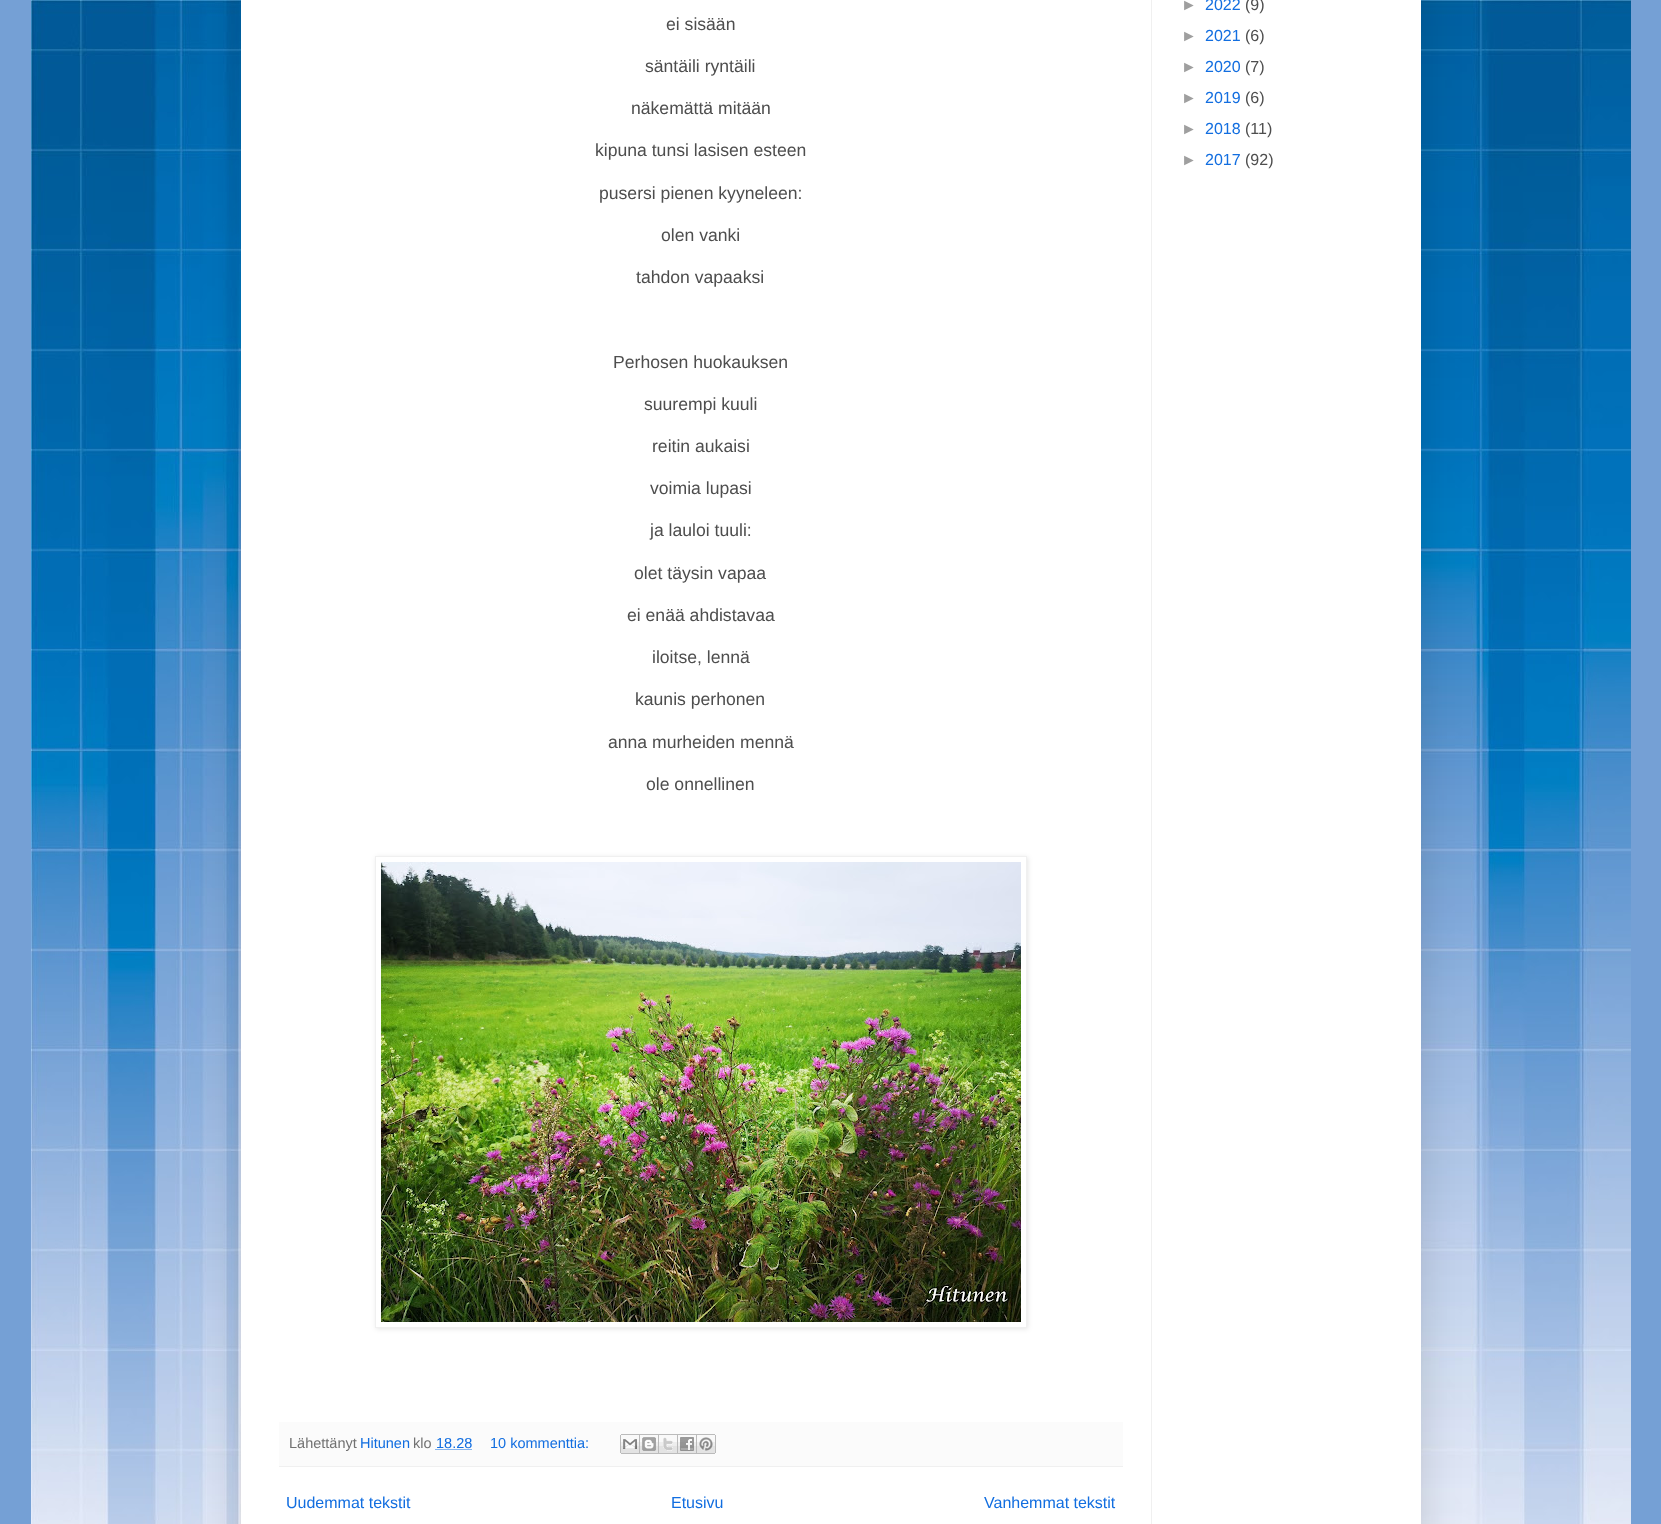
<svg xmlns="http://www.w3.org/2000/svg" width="1661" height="1524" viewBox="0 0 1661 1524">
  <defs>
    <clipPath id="clip1"><path d="M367 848H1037V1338H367ZM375 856H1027V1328H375Z" clip-rule="evenodd"/></clipPath>
  </defs>
  <rect width="100%" height="100%" fill="rgb(117,160,213)"/>
  <image x="31" y="0" width="1600" height="1524" href="pic1.png"/>
  <rect x="241" y="-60" width="1180" height="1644" fill="rgba(0,0,0,0.15)" filter="blur(20px)"/>
  <rect x="241" y="0" width="1180" height="1524" fill="rgb(255,255,255)"/>
  <g font-family="Arimo" font-size="17.6" fill="rgb(78,78,78)">
    <text x="666" y="30">ei sisään</text>
    <text x="645" y="72">säntäili ryntäili</text>
    <text x="631" y="114">näkemättä mitään</text>
    <text x="595" y="156">kipuna tunsi lasisen esteen</text>
    <text x="599" y="199">pusersi pienen kyyneleen:</text>
    <text x="661" y="241">olen vanki</text>
    <text x="636" y="283">tahdon vapaaksi</text>
    <text x="613" y="368">Perhosen huokauksen</text>
    <text x="644" y="410">suurempi kuuli</text>
    <text x="652" y="452">reitin aukaisi</text>
    <text x="650" y="494">voimia lupasi</text>
    <text x="650" y="536">ja lauloi tuuli:</text>
    <text x="634" y="579">olet täysin vapaa</text>
    <text x="627" y="621">ei enää ahdistavaa</text>
    <text x="652" y="663">iloitse, lennä</text>
    <text x="635" y="705">kaunis perhonen</text>
    <text x="608" y="748">anna murheiden mennä</text>
    <text x="646" y="790">ole onnellinen</text>
  </g>
  <g clip-path="url(#clip1)">
    <rect x="376" y="857" width="652" height="472" fill="rgba(0,0,0,0.1)" filter="blur(2.5px)"/>
  </g>
  <rect x="375.5" y="856.5" width="651" height="471" fill="none" stroke="rgb(240,240,240)"/>
  <image x="381" y="862" width="640" height="460" href="pic2.png"/>
  <rect x="279" y="1422" width="844" height="44" fill="rgb(251,251,251)"/>
  <rect x="279" y="1466" width="844" height="1" fill="rgb(240,240,240)"/>
  <text x="289" y="1448" font-family="Arimo" font-size="14.5" fill="rgb(114,114,114)">Lähettänyt</text>
  <text x="360" y="1448" font-family="Arimo" font-size="14.5" fill="rgb(18,110,224)">Hitunen</text>
  <text x="413" y="1448" font-family="Arimo" font-size="14.5" fill="rgb(114,114,114)">klo</text>
  <text x="436" y="1448" font-family="Arimo" font-size="14.5" fill="rgb(18,110,224)">18.28</text>
  <path d="M435.5 1449.5H472" fill="none" stroke="rgb(18,110,224)" stroke-dasharray="1 1"/>
  <text x="490" y="1448" font-family="Arimo" font-size="14.5" fill="rgb(18,110,224)">10 kommenttia:</text>
  <image x="620" y="1434" width="20" height="20" href="pic3.png"/>
  <image x="640" y="1434" width="19" height="20" href="pic4.png"/>
  <image x="659" y="1434" width="19" height="20" href="pic5.png"/>
  <image x="678" y="1434" width="19" height="20" href="pic6.png"/>
  <image x="697" y="1434" width="19" height="20" href="pic7.png"/>
  <g font-family="Arimo" font-size="16" fill="rgb(18,110,224)">
    <text x="286" y="1508">Uudemmat tekstit</text>
    <text x="671" y="1508">Etusivu</text>
    <text x="984" y="1508">Vanhemmat tekstit</text>
  </g>
  <text x="1181" y="10" font-family="Liberation Sans" font-size="16" fill="rgb(159,159,159)">►</text>
  <text x="1205" y="10" font-family="Arimo" font-size="16" fill="rgb(18,110,224)">2022</text>
  <text x="1245" y="10" font-family="Arimo" font-size="16" fill="rgb(78,78,78)">(9)</text>
  <text x="1181" y="41" font-family="Liberation Sans" font-size="16" fill="rgb(159,159,159)">►</text>
  <text x="1205" y="41" font-family="Arimo" font-size="16" fill="rgb(18,110,224)">2021</text>
  <text x="1245" y="41" font-family="Arimo" font-size="16" fill="rgb(78,78,78)">(6)</text>
  <text x="1181" y="72" font-family="Liberation Sans" font-size="16" fill="rgb(159,159,159)">►</text>
  <text x="1205" y="72" font-family="Arimo" font-size="16" fill="rgb(18,110,224)">2020</text>
  <text x="1245" y="72" font-family="Arimo" font-size="16" fill="rgb(78,78,78)">(7)</text>
  <text x="1181" y="103" font-family="Liberation Sans" font-size="16" fill="rgb(159,159,159)">►</text>
  <text x="1205" y="103" font-family="Arimo" font-size="16" fill="rgb(18,110,224)">2019</text>
  <text x="1245" y="103" font-family="Arimo" font-size="16" fill="rgb(78,78,78)">(6)</text>
  <text x="1181" y="134" font-family="Liberation Sans" font-size="16" fill="rgb(159,159,159)">►</text>
  <text x="1205" y="134" font-family="Arimo" font-size="16" fill="rgb(18,110,224)">2018</text>
  <text x="1245" y="134" font-family="Arimo" font-size="16" fill="rgb(78,78,78)">(11)</text>
  <text x="1181" y="165" font-family="Liberation Sans" font-size="16" fill="rgb(159,159,159)">►</text>
  <text x="1205" y="165" font-family="Arimo" font-size="16" fill="rgb(18,110,224)">2017</text>
  <text x="1245" y="165" font-family="Arimo" font-size="16" fill="rgb(78,78,78)">(92)</text>
  <rect x="1151" y="0" width="1" height="1524" fill="rgb(240,240,240)"/>
</svg>
